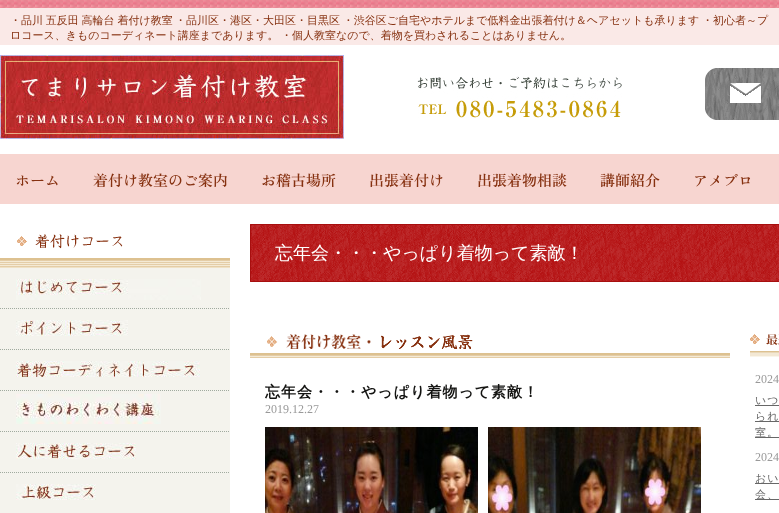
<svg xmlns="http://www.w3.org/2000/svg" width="779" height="513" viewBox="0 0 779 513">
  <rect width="100%" height="100%" fill="rgb(255,255,255)"/>
  <image x="0" y="0" width="779" height="8" href="pic1.png"/>
  <rect x="0" y="8" width="779" height="37" fill="rgb(250,233,231)"/>
  <g font-family="WenQuanYi Zen Hei" font-size="11" font-weight="500" fill="rgb(134,49,16)">
    <text x="10" y="24" word-spacing="-0.5">・品川 五反田 高輪台 着付け教室</text>
    <text x="175" y="24" word-spacing="-0.5">・品川区・港区・大田区・目黒区 ・渋谷区ご自宅やホテルまで低料金出張着付け＆ヘアセットも承ります</text>
    <text x="702" y="24">・初心者～プ</text>
    <text x="10" y="39">ロコース、きものコーディネート講座まであります。</text>
    <text x="281" y="39">・個人教室なので、着物を買わされることはありません。</text>
  </g>
  <image x="0" y="55" width="344" height="84" href="pic2.png"/>
  <image x="417" y="76" width="205" height="42" href="pic3.png"/>
  <image x="705" y="68" width="74" height="52" href="pic4.png"/>
  <rect x="0" y="154" width="779" height="50" fill="rgb(247,213,208)"/>
  <g font-family="Zen Old Mincho" font-size="15" font-weight="600" fill="rgb(134,49,16)">
    <text x="15" y="186">ホーム</text>
    <text x="93" y="186">着付け教室のご案内</text>
    <text x="261" y="186">お稽古場所</text>
    <text x="369" y="186">出張着付け</text>
    <text x="477" y="186">出張着物相談</text>
    <text x="600" y="186">講師紹介</text>
    <text x="693" y="186">アメブロ</text>
  </g>
  <image x="17" y="234" width="106" height="15" href="pic5.png"/>
  <image x="0" y="258" width="230" height="10" href="pic6.png"/>
  <rect x="0" y="268" width="230" height="245" fill="rgb(244,243,237)"/>
  <path d="M0 308.5H230" fill="none" stroke="rgb(160,170,159)" stroke-dasharray="1 1"/>
  <image x="16" y="279" width="185" height="21" href="pic7.png"/>
  <path d="M0 349.5H230" fill="none" stroke="rgb(160,170,159)" stroke-dasharray="1 1"/>
  <image x="16" y="320" width="112" height="16" href="pic8.png"/>
  <path d="M0 390.5H230" fill="none" stroke="rgb(160,170,159)" stroke-dasharray="1 1"/>
  <image x="16" y="361" width="184" height="16" href="pic9.png"/>
  <path d="M0 431.5H230" fill="none" stroke="rgb(160,170,159)" stroke-dasharray="1 1"/>
  <image x="16" y="394" width="145" height="30" href="pic10.png"/>
  <path d="M0 472.5H230" fill="none" stroke="rgb(160,170,159)" stroke-dasharray="1 1"/>
  <image x="16" y="443" width="120" height="16" href="pic11.png"/>
  <image x="16" y="484" width="80" height="16" href="pic12.png"/>
  <image x="250" y="224" width="529" height="58" href="pic13.png"/>
  <text x="275" y="259" font-family="WenQuanYi Zen Hei" font-size="18" font-weight="500" fill="rgb(255,255,255)">忘年会・・・やっぱり着物って素敵！</text>
  <image x="267" y="334" width="206" height="15" href="pic14.png"/>
  <image x="250" y="353" width="480" height="5" href="pic15.png"/>
  <text x="265" y="397" font-family="WenQuanYi Zen Hei" font-size="15" font-weight="bold" letter-spacing="1" fill="rgb(20,20,18)">忘年会・・・やっぱり着物って素敵！</text>
  <text x="265" y="413" font-family="Liberation Serif" font-size="12" fill="rgb(153,153,153)">2019.12.27</text>
  <image x="265" y="427" width="213" height="86" href="pic16.png"/>
  <image x="488" y="427" width="213" height="86" href="pic17.png"/>
  <image x="750" y="334" width="29" height="11" href="pic18.png"/>
  <image x="750" y="351" width="29" height="6" href="pic19.png"/>
  <text x="755" y="383" font-family="Liberation Serif" font-size="12" fill="rgb(153,153,153)">2024</text>
  <text x="755" y="404" font-family="WenQuanYi Zen Hei" font-size="11" font-weight="500" letter-spacing="1" fill="rgb(103,103,103)">いつ</text>
  <rect x="755" y="405" width="24" height="1" fill="rgb(103,103,103)"/>
  <rect x="755" y="421" width="24" height="1" fill="rgb(103,103,103)"/>
  <text x="755" y="420" font-family="WenQuanYi Zen Hei" font-size="11" font-weight="500" letter-spacing="1" fill="rgb(103,103,103)">られ</text>
  <rect x="755" y="437" width="24" height="1" fill="rgb(103,103,103)"/>
  <text x="755" y="436" font-family="WenQuanYi Zen Hei" font-size="11" font-weight="500" letter-spacing="1" fill="rgb(103,103,103)">室。</text>
  <text x="755" y="461" font-family="Liberation Serif" font-size="12" fill="rgb(153,153,153)">2024</text>
  <rect x="755" y="483" width="24" height="1" fill="rgb(103,103,103)"/>
  <text x="755" y="482" font-family="WenQuanYi Zen Hei" font-size="11" font-weight="500" letter-spacing="1" fill="rgb(103,103,103)">おい</text>
  <rect x="755" y="499" width="24" height="1" fill="rgb(103,103,103)"/>
  <text x="755" y="498" font-family="WenQuanYi Zen Hei" font-size="11" font-weight="500" letter-spacing="1" fill="rgb(103,103,103)">会、</text>
</svg>
